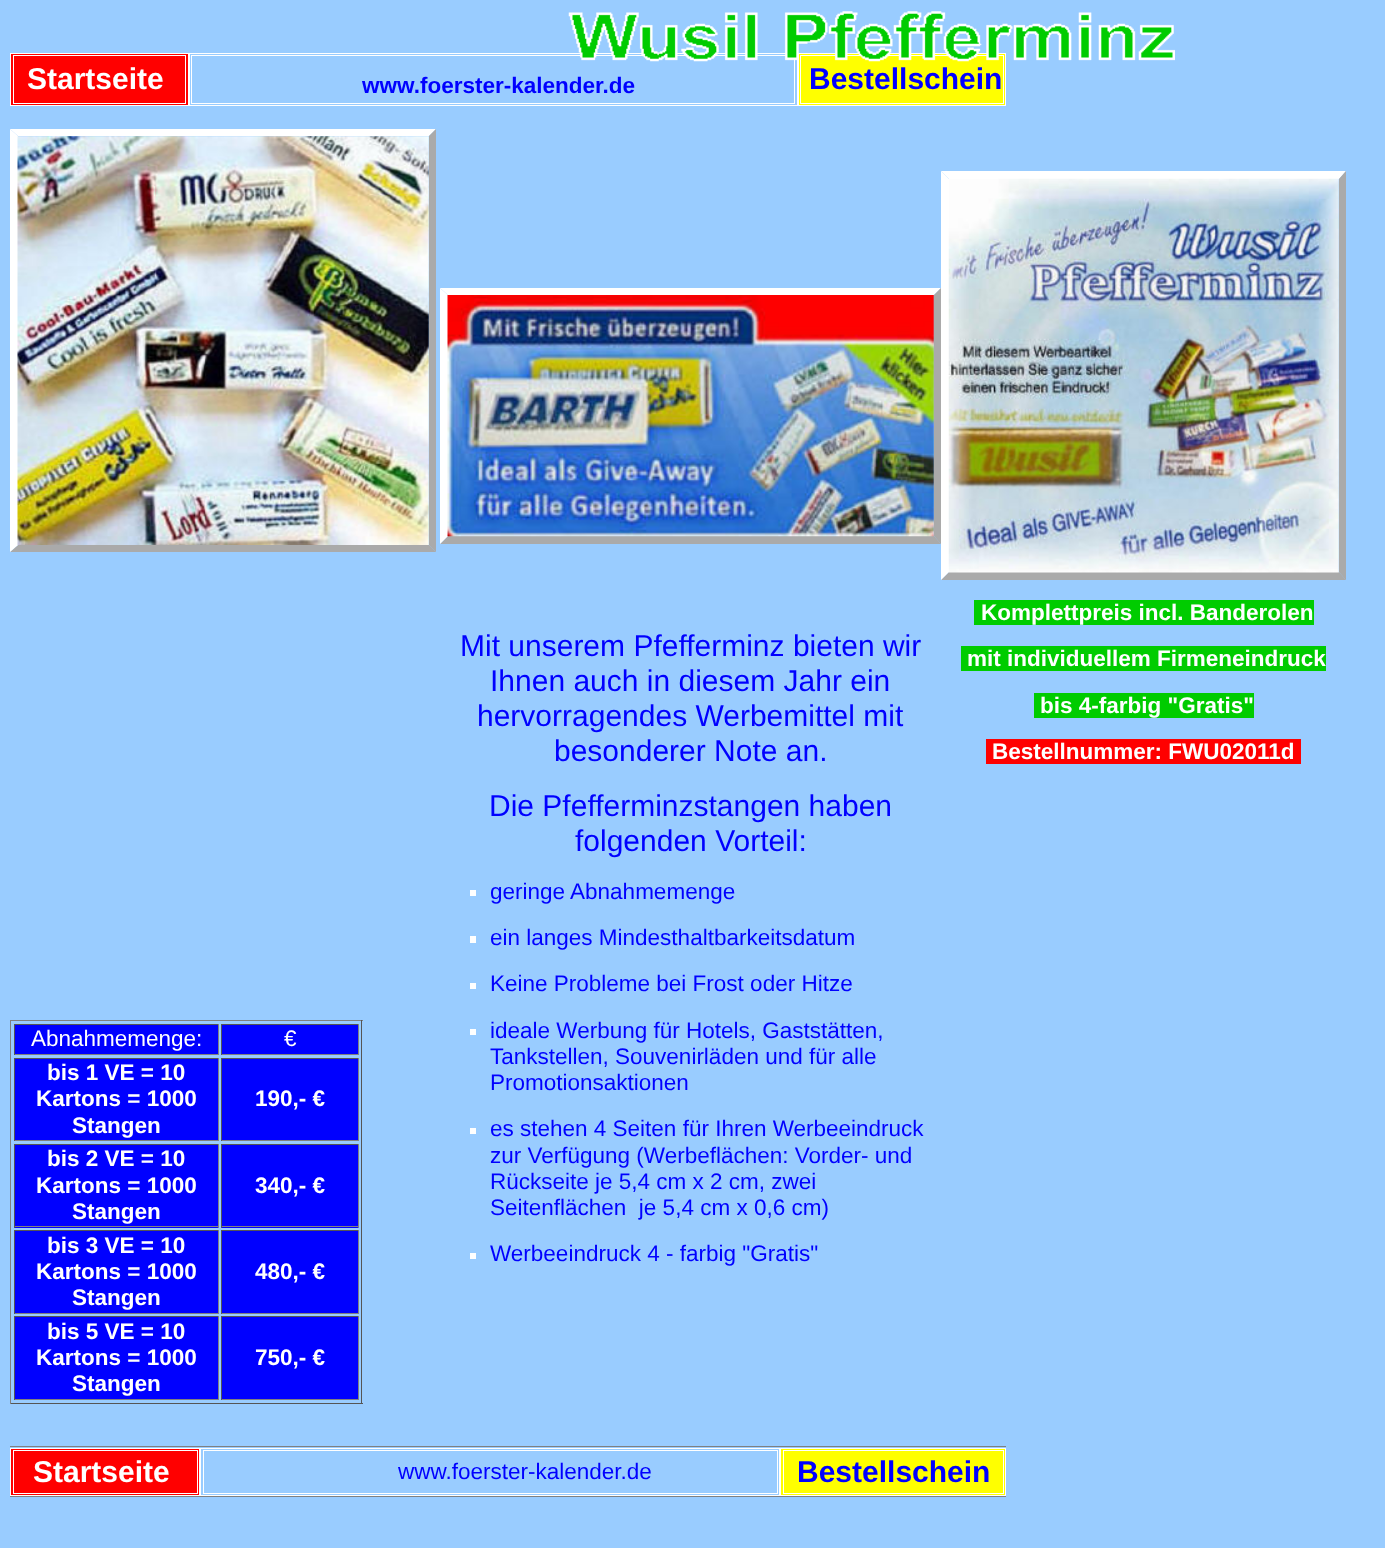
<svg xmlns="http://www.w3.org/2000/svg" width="1385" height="1548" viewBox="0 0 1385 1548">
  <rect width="100%" height="100%" fill="rgb(153,204,255)"/>
  <rect x="10.5" y="53.5" width="178" height="52" fill="rgb(255,0,0)" stroke="rgb(255,255,255)"/>
  <rect x="13.5" y="55.5" width="172" height="48" fill="none" stroke="rgb(255,255,255)"/>
  <text x="27" y="89" font-family="Liberation Sans" font-size="30" font-weight="bold" fill="rgb(255,255,255)">Startseite</text>
  <rect x="189.5" y="53.5" width="608" height="52" fill="none" stroke="rgb(255,255,255)"/>
  <rect x="191.5" y="55.5" width="603" height="48" fill="none" stroke="rgb(255,255,255)"/>
  <rect x="798.5" y="53.5" width="207" height="52" fill="rgb(255,255,0)" stroke="rgb(255,255,255)"/>
  <rect x="800.5" y="55.5" width="203" height="48" fill="none" stroke="rgb(255,255,255)"/>
  <image x="568" y="11" width="607" height="51" href="pic1.png"/>
  <text x="362" y="93" font-family="Liberation Sans" font-size="22.5" font-weight="bold" fill="rgb(0,0,255)">www.foerster-kalender.de</text>
  <text x="809" y="89" font-family="Liberation Sans" font-size="30" font-weight="bold" fill="rgb(0,0,255)">Bestellschein</text>
  <path d="M10 129H436L429 136H18Z" fill="rgb(255,255,255)"/>
  <path d="M436 129V552L429 545V136Z" fill="rgb(170,170,170)"/>
  <path d="M436 552H10L18 545H429Z" fill="rgb(170,170,170)"/>
  <path d="M10 552V129L18 136V545Z" fill="rgb(255,255,255)"/>
  <image x="17" y="136" width="412" height="409" href="pic2.png"/>
  <rect x="10" y="1020" width="353" height="1" fill="rgb(128,128,128)"/>
  <rect x="361" y="1020" width="1" height="384" fill="rgb(85,85,85)"/>
  <rect x="10" y="1403" width="353" height="1" fill="rgb(85,85,85)"/>
  <rect x="10" y="1020" width="1" height="384" fill="rgb(128,128,128)"/>
  <rect x="15" y="1025" width="203" height="29" fill="rgb(0,0,255)"/>
  <rect x="14" y="1024" width="205" height="1" fill="rgb(85,85,85)"/>
  <rect x="218" y="1024" width="1" height="31" fill="rgb(128,128,128)"/>
  <rect x="14" y="1054" width="205" height="1" fill="rgb(128,128,128)"/>
  <rect x="14" y="1024" width="1" height="31" fill="rgb(85,85,85)"/>
  <text x="31" y="1046" font-family="Liberation Sans" font-size="22.5" fill="rgb(255,255,255)">Abnahmemenge:</text>
  <rect x="222" y="1025" width="136" height="29" fill="rgb(0,0,255)"/>
  <rect x="221" y="1024" width="138" height="1" fill="rgb(85,85,85)"/>
  <rect x="358" y="1024" width="1" height="31" fill="rgb(128,128,128)"/>
  <rect x="221" y="1054" width="138" height="1" fill="rgb(128,128,128)"/>
  <rect x="221" y="1024" width="1" height="31" fill="rgb(85,85,85)"/>
  <text x="284" y="1046" font-family="Liberation Sans" font-size="22.5" fill="rgb(255,255,255)">€</text>
  <rect x="15" y="1059" width="203" height="81" fill="rgb(0,0,255)"/>
  <rect x="14" y="1058" width="205" height="1" fill="rgb(85,85,85)"/>
  <rect x="218" y="1058" width="1" height="83" fill="rgb(128,128,128)"/>
  <rect x="14" y="1140" width="205" height="1" fill="rgb(128,128,128)"/>
  <rect x="14" y="1058" width="1" height="83" fill="rgb(85,85,85)"/>
  <g font-family="Liberation Sans" font-size="22.5" font-weight="bold" fill="rgb(255,255,255)">
    <text x="47" y="1080">bis 1 VE = 10</text>
    <text x="36" y="1106">Kartons = 1000</text>
    <text x="72" y="1133">Stangen</text>
  </g>
  <rect x="222" y="1059" width="136" height="81" fill="rgb(0,0,255)"/>
  <rect x="221" y="1058" width="138" height="1" fill="rgb(85,85,85)"/>
  <rect x="358" y="1058" width="1" height="83" fill="rgb(128,128,128)"/>
  <rect x="221" y="1140" width="138" height="1" fill="rgb(128,128,128)"/>
  <rect x="221" y="1058" width="1" height="83" fill="rgb(85,85,85)"/>
  <text x="255" y="1106" font-family="Liberation Sans" font-size="22.5" font-weight="bold" fill="rgb(255,255,255)">190,- €</text>
  <rect x="15" y="1145" width="203" height="83" fill="rgb(0,0,255)"/>
  <rect x="14" y="1144" width="205" height="1" fill="rgb(85,85,85)"/>
  <rect x="218" y="1144" width="1" height="84" fill="rgb(128,128,128)"/>
  <rect x="14" y="1226" width="205" height="1" fill="rgb(128,128,128)"/>
  <rect x="14" y="1144" width="1" height="84" fill="rgb(85,85,85)"/>
  <g font-family="Liberation Sans" font-size="22.5" font-weight="bold" fill="rgb(255,255,255)">
    <text x="47" y="1166">bis 2 VE = 10</text>
    <text x="36" y="1193">Kartons = 1000</text>
    <text x="72" y="1219">Stangen</text>
  </g>
  <rect x="222" y="1145" width="136" height="83" fill="rgb(0,0,255)"/>
  <rect x="221" y="1144" width="138" height="1" fill="rgb(85,85,85)"/>
  <rect x="358" y="1144" width="1" height="84" fill="rgb(128,128,128)"/>
  <rect x="221" y="1226" width="138" height="1" fill="rgb(128,128,128)"/>
  <rect x="221" y="1144" width="1" height="84" fill="rgb(85,85,85)"/>
  <text x="255" y="1193" font-family="Liberation Sans" font-size="22.5" font-weight="bold" fill="rgb(255,255,255)">340,- €</text>
  <rect x="15" y="1231" width="203" height="82" fill="rgb(0,0,255)"/>
  <rect x="14" y="1230" width="205" height="1" fill="rgb(85,85,85)"/>
  <rect x="218" y="1230" width="1" height="84" fill="rgb(128,128,128)"/>
  <rect x="14" y="1313" width="205" height="1" fill="rgb(128,128,128)"/>
  <rect x="14" y="1230" width="1" height="84" fill="rgb(85,85,85)"/>
  <g font-family="Liberation Sans" font-size="22.5" font-weight="bold" fill="rgb(255,255,255)">
    <text x="47" y="1253">bis 3 VE = 10</text>
    <text x="36" y="1279">Kartons = 1000</text>
    <text x="72" y="1305">Stangen</text>
  </g>
  <rect x="222" y="1231" width="136" height="82" fill="rgb(0,0,255)"/>
  <rect x="221" y="1230" width="138" height="1" fill="rgb(85,85,85)"/>
  <rect x="358" y="1230" width="1" height="84" fill="rgb(128,128,128)"/>
  <rect x="221" y="1313" width="138" height="1" fill="rgb(128,128,128)"/>
  <rect x="221" y="1230" width="1" height="84" fill="rgb(85,85,85)"/>
  <text x="255" y="1279" font-family="Liberation Sans" font-size="22.5" font-weight="bold" fill="rgb(255,255,255)">480,- €</text>
  <rect x="15" y="1317" width="203" height="82" fill="rgb(0,0,255)"/>
  <rect x="14" y="1316" width="205" height="1" fill="rgb(85,85,85)"/>
  <rect x="218" y="1316" width="1" height="84" fill="rgb(128,128,128)"/>
  <rect x="14" y="1399" width="205" height="1" fill="rgb(128,128,128)"/>
  <rect x="14" y="1316" width="1" height="84" fill="rgb(85,85,85)"/>
  <g font-family="Liberation Sans" font-size="22.5" font-weight="bold" fill="rgb(255,255,255)">
    <text x="47" y="1339">bis 5 VE = 10</text>
    <text x="36" y="1365">Kartons = 1000</text>
    <text x="72" y="1391">Stangen</text>
  </g>
  <rect x="222" y="1317" width="136" height="82" fill="rgb(0,0,255)"/>
  <rect x="221" y="1316" width="138" height="1" fill="rgb(85,85,85)"/>
  <rect x="358" y="1316" width="1" height="84" fill="rgb(128,128,128)"/>
  <rect x="221" y="1399" width="138" height="1" fill="rgb(128,128,128)"/>
  <rect x="221" y="1316" width="1" height="84" fill="rgb(85,85,85)"/>
  <text x="255" y="1365" font-family="Liberation Sans" font-size="22.5" font-weight="bold" fill="rgb(255,255,255)">750,- €</text>
  <path d="M440 288H941L934 295H448Z" fill="rgb(255,255,255)"/>
  <path d="M941 288V544L934 536V295Z" fill="rgb(170,170,170)"/>
  <path d="M941 544H440L448 536H934Z" fill="rgb(170,170,170)"/>
  <path d="M440 544V288L448 295V536Z" fill="rgb(255,255,255)"/>
  <image x="447" y="295" width="487" height="242" href="pic3.png"/>
  <g font-family="Liberation Sans" font-size="30" fill="rgb(0,0,255)">
    <text x="460" y="656">Mit unserem Pfefferminz bieten wir</text>
    <text x="490" y="691">Ihnen auch in diesem Jahr ein</text>
    <text x="477" y="726">hervorragendes Werbemittel mit</text>
    <text x="554" y="761">besonderer Note an.</text>
    <text x="489" y="816">Die Pfefferminzstangen haben</text>
    <text x="575" y="851">folgenden Vorteil:</text>
  </g>
  <rect x="470" y="890" width="6" height="6" fill="rgb(255,255,255)"/>
  <text x="490" y="899" font-family="Liberation Sans" font-size="22.5" fill="rgb(0,0,255)">geringe Abnahmemenge</text>
  <rect x="470" y="936" width="6" height="7" fill="rgb(255,255,255)"/>
  <text x="490" y="945" font-family="Liberation Sans" font-size="22.5" fill="rgb(0,0,255)">ein langes Mindesthaltbarkeitsdatum</text>
  <rect x="470" y="983" width="6" height="6" fill="rgb(255,255,255)"/>
  <text x="490" y="991" font-family="Liberation Sans" font-size="22.5" fill="rgb(0,0,255)">Keine Probleme bei Frost oder Hitze</text>
  <rect x="470" y="1029" width="6" height="6" fill="rgb(255,255,255)"/>
  <g font-family="Liberation Sans" font-size="22.5" fill="rgb(0,0,255)">
    <text>
      <tspan x="490" y="1038">ideale Werbung für Hotels, Gaststätten,</tspan>
      <tspan x="490" y="1064">Tankstellen, Souvenirläden und für alle</tspan>
      <tspan x="490" y="1090">Promotionsaktionen</tspan>
    </text>
  </g>
  <rect x="470" y="1128" width="6" height="6" fill="rgb(255,255,255)"/>
  <g font-family="Liberation Sans" font-size="22.5" fill="rgb(0,0,255)">
    <text xml:space="preserve"><tspan x="490" y="1136">es stehen 4 Seiten für Ihren Werbeeindruck</tspan><tspan x="490" y="1163">zur Verfügung (Werbeflächen: Vorder- und</tspan><tspan x="490" y="1189">Rückseite je 5,4 cm x 2 cm, zwei</tspan><tspan x="490" y="1215">Seitenflächen  je 5,4 cm x 0,6 cm)</tspan></text>
  </g>
  <rect x="470" y="1253" width="6" height="6" fill="rgb(255,255,255)"/>
  <text x="490" y="1261" font-family="Liberation Sans" font-size="22.5" fill="rgb(0,0,255)">Werbeeindruck 4 - farbig "Gratis"</text>
  <path d="M941 171H1346L1339 179H949Z" fill="rgb(255,255,255)"/>
  <path d="M1346 171V580L1339 572V179Z" fill="rgb(170,170,170)"/>
  <path d="M1346 580H941L949 572H1339Z" fill="rgb(170,170,170)"/>
  <path d="M941 580V171L949 179V572Z" fill="rgb(255,255,255)"/>
  <image x="948" y="178" width="391" height="395" href="pic4.png"/>
  <rect x="974" y="600" width="340" height="25" fill="rgb(0,204,0)"/>
  <text x="981" y="620" font-family="Liberation Sans" font-size="22.5" font-weight="bold" fill="rgb(255,255,255)">Komplettpreis incl. Banderolen</text>
  <rect x="961" y="646" width="365" height="25" fill="rgb(0,204,0)"/>
  <text x="967" y="666" font-family="Liberation Sans" font-size="22.5" font-weight="bold" fill="rgb(255,255,255)">mit individuellem Firmeneindruck</text>
  <rect x="1034" y="693" width="220" height="25" fill="rgb(0,204,0)"/>
  <text x="1040" y="713" font-family="Liberation Sans" font-size="22.5" font-weight="bold" fill="rgb(255,255,255)">bis 4-farbig "Gratis"</text>
  <rect x="986" y="739" width="315" height="25" fill="rgb(255,0,0)"/>
  <text x="992" y="759" font-family="Liberation Sans" font-size="22.5" font-weight="bold" fill="rgb(255,255,255)">Bestellnummer: FWU02011d</text>
  <rect x="10" y="1446" width="996" height="1" fill="rgb(128,128,128)"/>
  <rect x="10" y="1496" width="996" height="1" fill="rgb(128,128,128)"/>
  <rect x="10.5" y="1448.5" width="189" height="47" fill="rgb(255,0,0)" stroke="rgb(255,255,255)"/>
  <rect x="13.5" y="1450.5" width="184" height="43" fill="none" stroke="rgb(255,255,255)"/>
  <text x="33" y="1482" font-family="Liberation Sans" font-size="30" font-weight="bold" fill="rgb(255,255,255)">Startseite</text>
  <rect x="200.5" y="1448.5" width="579" height="47" fill="none" stroke="rgb(255,255,255)"/>
  <rect x="203.5" y="1450.5" width="574" height="43" fill="none" stroke="rgb(255,255,255)"/>
  <text x="398" y="1479" font-family="Liberation Sans" font-size="22.5" fill="rgb(0,0,255)">www.foerster-kalender.de</text>
  <rect x="780.5" y="1448.5" width="225" height="47" fill="rgb(255,255,0)" stroke="rgb(255,255,255)"/>
  <rect x="783.5" y="1450.5" width="220" height="43" fill="none" stroke="rgb(255,255,255)"/>
  <text x="797" y="1482" font-family="Liberation Sans" font-size="30" font-weight="bold" fill="rgb(0,0,255)">Bestellschein</text>
</svg>
